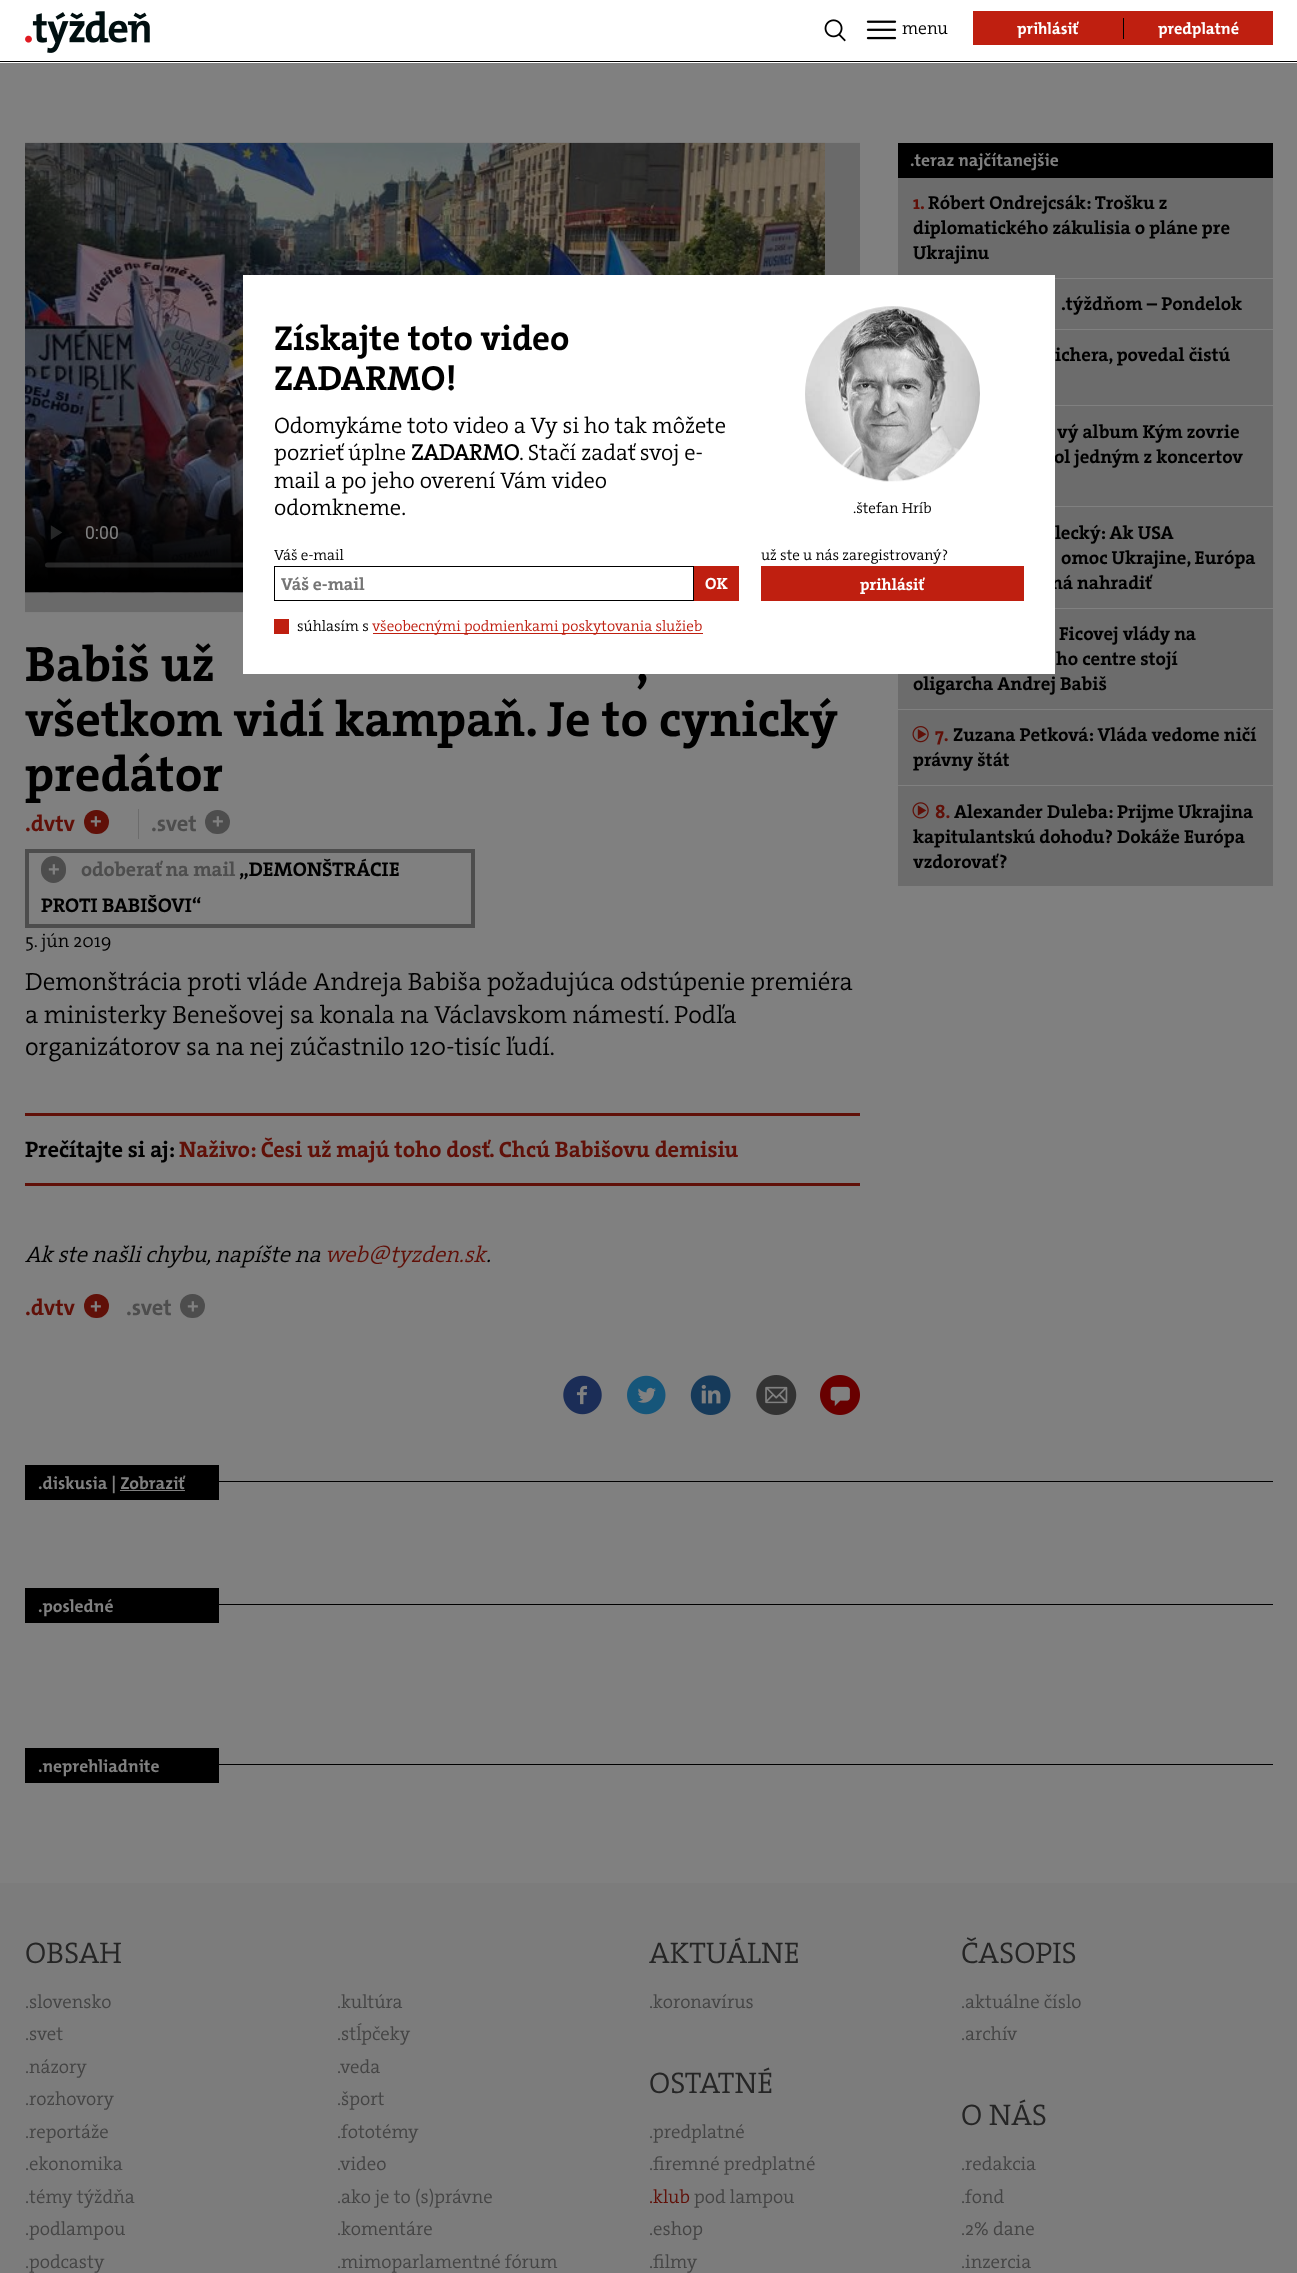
<svg xmlns="http://www.w3.org/2000/svg" width="1297" height="2273" viewBox="0 0 1297 2273">
  <rect width="100%" height="100%" fill="rgb(128,128,128)"/>
  <rect x="0" y="0" width="1297" height="63" fill="rgb(255,255,255)"/>
  <rect x="0" y="61" width="1297" height="1" fill="rgb(0,0,0)"/>
  <image x="25" y="11" width="125" height="42" href="pic1.png"/>
  <image x="824" y="19" width="22" height="23" href="pic2.png"/>
  <image x="866" y="20" width="31" height="20" href="pic3.png"/>
  <text x="902" y="34" font-family="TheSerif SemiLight" font-size="17.5" font-weight="300" fill="rgb(0,0,0)">menu</text>
  <rect x="973" y="11" width="300" height="34" fill="rgb(191,31,16)"/>
  <text x="1017" y="34" font-family="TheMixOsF" font-size="16.25" font-weight="bold" fill="rgb(255,255,255)">prihlásiť</text>
  <rect x="1123" y="18" width="1" height="21" fill="rgb(0,0,0)"/>
  <text x="1158" y="34" font-family="TheMixOsF" font-size="16.25" font-weight="bold" fill="rgb(255,255,255)">predplatné</text>
  <rect x="898" y="143" width="375" height="35" fill="rgb(0,0,0)"/>
  <text x="910" y="166" font-family="TheMixOsF" font-size="17.5" font-weight="bold" fill="rgb(128,128,128)">.teraz najčítanejšie</text>
  <rect x="898" y="178" width="375" height="100" fill="rgb(108,108,108)"/>
  <text x="913" y="209" font-family="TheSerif" font-size="18.75" font-weight="bold" fill="rgb(96,16,8)">1.</text>
  <g font-family="TheSerif" font-size="18.75" font-weight="bold" fill="rgb(0,0,0)">
    <text x="928" y="209">Róbert Ondrejcsák: Trošku z</text>
    <text>
      <tspan x="913" y="234">diplomatického zákulisia o pláne pre</tspan>
      <tspan x="913" y="259">Ukrajinu</tspan>
    </text>
  </g>
  <rect x="1055" y="279" width="218" height="50" fill="rgb(108,108,108)"/>
  <text x="1061" y="310" font-family="TheSerif" font-size="18.75" font-weight="bold" fill="rgb(0,0,0)">.týždňom – Pondelok</text>
  <rect x="1055" y="330" width="218" height="75" fill="rgb(108,108,108)"/>
  <text x="1055" y="361" font-family="TheSerif" font-size="18.75" font-weight="bold" fill="rgb(0,0,0)">ichera, povedal čistú</text>
  <rect x="1055" y="406" width="218" height="202" fill="rgb(108,108,108)"/>
  <rect x="1055" y="506" width="218" height="1" fill="rgb(128,128,128)"/>
  <g font-family="TheSerif" font-size="18.75" font-weight="bold" fill="rgb(0,0,0)">
    <text x="1057" y="438">vý album Kým zovrie</text>
    <text x="1054" y="463">ol jedným z koncertov</text>
    <text x="1055" y="539">lecký: Ak USA</text>
    <text x="1061" y="564">omoc Ukrajine, Európa</text>
    <text x="1051" y="589">ná nahradiť</text>
  </g>
  <rect x="898" y="609" width="375" height="100" fill="rgb(108,108,108)"/>
  <g font-family="TheSerif" font-size="18.75" font-weight="bold" fill="rgb(0,0,0)">
    <text x="1059" y="640">Ficovej vlády na</text>
    <text x="1056" y="665">ho centre stojí</text>
    <text x="913" y="690">oligarcha Andrej Babiš</text>
  </g>
  <rect x="898" y="710" width="375" height="75" fill="rgb(108,108,108)"/>
  <image x="912" y="726" width="17" height="17" href="pic4.png"/>
  <text x="935" y="741" font-family="TheSerif" font-size="18.75" font-weight="bold" fill="rgb(96,16,8)">7.</text>
  <g font-family="TheSerif" font-size="18.75" font-weight="bold" fill="rgb(0,0,0)">
    <text x="953" y="741">Zuzana Petková: Vláda vedome ničí</text>
    <text x="913" y="766">právny štát</text>
  </g>
  <rect x="898" y="786" width="375" height="100" fill="rgb(108,108,108)"/>
  <image x="912" y="802" width="17" height="17" href="pic5.png"/>
  <text x="935" y="818" font-family="TheSerif" font-size="18.75" font-weight="bold" fill="rgb(96,16,8)">8.</text>
  <g font-family="TheSerif" font-size="18.75" font-weight="bold" fill="rgb(0,0,0)">
    <text x="954" y="818">Alexander Duleba: Prijme Ukrajina</text>
    <text>
      <tspan x="913" y="843">kapitulantskú dohodu? Dokáže Európa</tspan>
      <tspan x="913" y="868">vzdorovať?</tspan>
    </text>
  </g>
  <image x="25" y="142" width="835" height="471" href="pic6.png"/>
  <g font-family="TheSerif" font-size="50" font-weight="bold" fill="rgb(0,0,0)">
    <text x="25" y="681">Babiš už</text>
    <text x="636" y="681">,</text>
    <text>
      <tspan x="25" y="736">všetkom vidí kampaň. Je to cynický</tspan>
      <tspan x="25" y="791">predátor</tspan>
    </text>
  </g>
  <text x="25" y="831" font-family="TheMixOsF" font-size="22.5" font-weight="bold" fill="rgb(96,16,8)">.dvtv</text>
  <rect x="84" y="810" width="25" height="24" rx="12" fill="rgb(96,16,8)"/>
  <text x="90" y="828" font-family="Liberation Sans" font-size="20" font-weight="bold" fill="rgb(128,128,128)">+</text>
  <text x="151" y="831" font-family="TheMixOsF" font-size="22.5" font-weight="bold" fill="rgb(77,77,77)">.svet</text>
  <rect x="138" y="809" width="1" height="30" fill="rgb(108,108,108)"/>
  <rect x="205" y="810" width="25" height="24" rx="12" fill="rgb(77,77,77)"/>
  <text x="212" y="828" font-family="Liberation Sans" font-size="20" font-weight="bold" fill="rgb(128,128,128)">+</text>
  <rect x="27" y="851" width="446" height="75" fill="none" stroke="rgb(77,77,77)" stroke-width="4"/>
  <rect x="42.5" y="857.5" width="22" height="24" rx="11" fill="rgb(77,77,77)" stroke="rgb(77,77,77)" stroke-width="3"/>
  <text x="48" y="876" font-family="Liberation Sans" font-size="20" font-weight="bold" fill="rgb(128,128,128)">+</text>
  <text x="81" y="876" font-family="TheSerif" font-size="20" font-weight="bold" fill="rgb(77,77,77)">odoberať na mail</text>
  <g font-family="TheSerif" font-size="20" font-weight="bold" fill="rgb(0,0,0)">
    <text x="239" y="876">„DEMONŠTRÁCIE</text>
    <text x="41" y="912">PROTI BABIŠOVI“</text>
  </g>
  <text x="25" y="947" font-family="TheSerif SemiLight" font-size="18.75" font-weight="300" fill="rgb(0,0,0)">5. jún 2019</text>
  <g font-family="TheSerif SemiLight" font-size="25" font-weight="300" fill="rgb(0,0,0)">
    <text>
      <tspan x="25" y="990">Demonštrácia proti vláde Andreja Babiša požadujúca odstúpenie premiéra</tspan>
      <tspan x="25" y="1023">a ministerky Benešovej sa konala na Václavskom námestí. Podľa</tspan>
      <tspan x="25" y="1055">organizátorov sa na nej zúčastnilo 120-tisíc ľudí.</tspan>
    </text>
  </g>
  <rect x="25" y="1113" width="835" height="3" fill="rgb(96,16,8)"/>
  <rect x="25" y="1183" width="835" height="3" fill="rgb(96,16,8)"/>
  <text x="25" y="1157" font-family="TheSerif" font-size="22.5" font-weight="bold" fill="rgb(0,0,0)">Prečítajte si aj:</text>
  <text x="179" y="1157" font-family="TheSerif" font-size="22.5" font-weight="bold" fill="rgb(96,16,8)">Naživo: Česi už majú toho dosť. Chcú Babišovu demisiu</text>
  <text x="25" y="1262" font-family="TheSerif SemiLight" font-size="22.5" font-weight="300" font-style="italic" fill="rgb(0,0,0)">Ak ste našli chybu, napíšte na</text>
  <text x="325" y="1262" font-family="TheSerif SemiLight" font-size="22.5" font-weight="300" font-style="italic" fill="rgb(96,16,8)">web@tyzden.sk</text>
  <text x="486" y="1262" font-family="TheSerif SemiLight" font-size="22.5" font-weight="300" font-style="italic" fill="rgb(0,0,0)">.</text>
  <text x="25" y="1315" font-family="TheMixOsF" font-size="22.5" font-weight="bold" fill="rgb(96,16,8)">.dvtv</text>
  <rect x="84" y="1294" width="25" height="24" rx="12" fill="rgb(96,16,8)"/>
  <text x="90" y="1313" font-family="Liberation Sans" font-size="20" font-weight="bold" fill="rgb(128,128,128)">+</text>
  <text x="126" y="1315" font-family="TheMixOsF" font-size="22.5" font-weight="bold" fill="rgb(77,77,77)">.svet</text>
  <rect x="180" y="1294" width="25" height="24" rx="12" fill="rgb(77,77,77)"/>
  <text x="187" y="1313" font-family="Liberation Sans" font-size="20" font-weight="bold" fill="rgb(128,128,128)">+</text>
  <image x="563" y="1375" width="39" height="40" href="pic7.png"/>
  <image x="627" y="1375" width="39" height="40" href="pic8.png"/>
  <image x="690" y="1375" width="41" height="40" href="pic9.png"/>
  <image x="756" y="1375" width="41" height="40" href="pic10.png"/>
  <image x="820" y="1375" width="40" height="40" href="pic11.png"/>
  <rect x="25" y="1465" width="194" height="35" fill="rgb(0,0,0)"/>
  <text x="38" y="1489" font-family="TheMixOsF" font-size="17.5" font-weight="bold" fill="rgb(128,128,128)">.diskusia | Zobraziť</text>
  <rect x="120" y="1490" width="65" height="1" fill="rgb(128,128,128)"/>
  <rect x="219" y="1481" width="1054" height="1" fill="rgb(0,0,0)"/>
  <rect x="25" y="1588" width="194" height="35" fill="rgb(0,0,0)"/>
  <text x="38" y="1612" font-family="TheMixOsF" font-size="17.5" font-weight="bold" fill="rgb(128,128,128)">.posledné</text>
  <rect x="219" y="1604" width="1054" height="1" fill="rgb(0,0,0)"/>
  <rect x="25" y="1748" width="194" height="35" fill="rgb(0,0,0)"/>
  <text x="38" y="1772" font-family="TheMixOsF" font-size="17.5" font-weight="bold" fill="rgb(128,128,128)">.neprehliadnite</text>
  <rect x="219" y="1764" width="1054" height="1" fill="rgb(0,0,0)"/>
  <rect x="243" y="275" width="812" height="399" fill="rgb(255,255,255)"/>
  <g font-family="TheSerif" font-size="35" font-weight="bold" fill="rgb(0,0,0)">
    <text>
      <tspan x="274" y="350">Získajte toto video</tspan>
      <tspan x="274" y="390">ZADARMO!</tspan>
    </text>
  </g>
  <g font-family="TheSerif SemiLight" font-size="22.5" font-weight="300" fill="rgb(0,0,0)">
    <text>
      <tspan x="274" y="433">Odomykáme toto video a Vy si ho tak môžete</tspan>
      <tspan x="274" y="460">pozrieť úplne</tspan>
    </text>
  </g>
  <text x="411" y="460" font-family="TheSerif SemiLight" font-size="22.5" font-weight="bold" fill="rgb(0,0,0)">ZADARMO</text>
  <g font-family="TheSerif SemiLight" font-size="22.5" font-weight="300" fill="rgb(0,0,0)">
    <text x="519" y="460">. Stačí zadať svoj e-</text>
    <text>
      <tspan x="274" y="488">mail a po jeho overení Vám video</tspan>
      <tspan x="274" y="515">odomkneme.</tspan>
    </text>
  </g>
  <image x="805" y="306" width="175" height="176" href="pic12.png"/>
  <g font-family="TheSerif SemiLight" font-size="15" font-weight="300" fill="rgb(0,0,0)">
    <text x="853" y="513">.štefan Hríb</text>
    <text x="274" y="560">Váš e-mail</text>
  </g>
  <rect x="274.5" y="566.5" width="419" height="34" fill="none" stroke="rgb(0,0,0)"/>
  <text x="281" y="590" font-family="TheSerif" font-size="17.5" font-weight="bold" fill="rgb(117,117,117)">Váš e-mail</text>
  <rect x="694" y="566" width="45" height="35" fill="rgb(191,31,16)"/>
  <text x="705" y="589" font-family="TheSerif" font-size="16.25" font-weight="bold" fill="rgb(255,255,255)">OK</text>
  <text x="761" y="560" font-family="TheSerif SemiLight" font-size="15" font-weight="300" fill="rgb(0,0,0)">už ste u nás zaregistrovaný?</text>
  <rect x="761" y="566" width="263" height="35" fill="rgb(191,31,16)"/>
  <text x="860" y="590" font-family="TheSerif" font-size="16.25" font-weight="bold" fill="rgb(255,255,255)">prihlásiť</text>
  <rect x="274" y="619" width="15" height="15" fill="rgb(191,31,16)"/>
  <text x="297" y="631" font-family="TheSerif SemiLight" font-size="15" font-weight="300" fill="rgb(0,0,0)">súhlasím s</text>
  <rect x="373" y="633" width="330" height="1" fill="rgb(191,31,16)"/>
  <text x="372" y="631" font-family="TheSerif SemiLight" font-size="15" font-weight="300" fill="rgb(191,31,16)">všeobecnými podmienkami poskytovania služieb</text>
  <rect x="0" y="1883" width="1297" height="390" fill="rgb(124,124,124)"/>
  <text x="25" y="1963" font-family="TheSerif SemiLight" font-size="30" font-weight="300" fill="rgb(37,37,37)">OBSAH</text>
  <g font-family="TheSerif SemiLight" font-size="18.75" font-weight="300" fill="rgb(68,68,68)">
    <text>
      <tspan x="25" y="2008">.slovensko</tspan>
      <tspan x="25" y="2040">.svet</tspan>
      <tspan x="25" y="2073">.názory</tspan>
      <tspan x="25" y="2105">.rozhovory</tspan>
      <tspan x="25" y="2138">.reportáže</tspan>
      <tspan x="25" y="2170">.ekonomika</tspan>
      <tspan x="25" y="2203">.témy týždňa</tspan>
      <tspan x="25" y="2235">.podlampou</tspan>
      <tspan x="25" y="2268">.podcasty</tspan>
    </text>
    <text>
      <tspan x="337" y="2008">.kultúra</tspan>
      <tspan x="337" y="2040">.stĺpčeky</tspan>
      <tspan x="337" y="2073">.</tspan>
    </text>
    <text x="340" y="2073">veda</text>
    <text>
      <tspan x="337" y="2105">.šport</tspan>
      <tspan x="337" y="2138">.fototémy</tspan>
      <tspan x="337" y="2170">.</tspan>
    </text>
    <text x="340" y="2170">video</text>
    <text>
      <tspan x="337" y="2203">.ako je to (s)právne</tspan>
      <tspan x="337" y="2235">.komentáre</tspan>
      <tspan x="337" y="2268">.mimoparlamentné fórum</tspan>
    </text>
  </g>
  <text x="649" y="1963" font-family="TheSerif SemiLight" font-size="30" font-weight="300" fill="rgb(37,37,37)">AKTUÁLNE</text>
  <text x="649" y="2008" font-family="TheSerif SemiLight" font-size="18.75" font-weight="300" fill="rgb(68,68,68)">.koronavírus</text>
  <text x="649" y="2093" font-family="TheSerif SemiLight" font-size="30" font-weight="300" fill="rgb(37,37,37)">OSTATNÉ</text>
  <g font-family="TheSerif SemiLight" font-size="18.75" font-weight="300" fill="rgb(68,68,68)">
    <text>
      <tspan x="649" y="2138">.predplatné</tspan>
      <tspan x="649" y="2170">.firemné predplatné</tspan>
    </text>
  </g>
  <text x="649" y="2203" font-family="TheSerif SemiLight" font-size="18.75" font-weight="300" fill="rgb(96,16,8)">.klub</text>
  <g font-family="TheSerif SemiLight" font-size="18.75" font-weight="300" fill="rgb(68,68,68)">
    <text x="694" y="2203">pod lampou</text>
    <text>
      <tspan x="649" y="2235">.eshop</tspan>
      <tspan x="649" y="2268">.filmy</tspan>
    </text>
  </g>
  <text x="961" y="1963" font-family="TheSerif SemiLight" font-size="30" font-weight="300" fill="rgb(37,37,37)">ČASOPIS</text>
  <g font-family="TheSerif SemiLight" font-size="18.75" font-weight="300" fill="rgb(68,68,68)">
    <text>
      <tspan x="961" y="2008">.aktuálne číslo</tspan>
      <tspan x="961" y="2040">.archív</tspan>
    </text>
  </g>
  <text x="961" y="2125" font-family="TheSerif SemiLight" font-size="30" font-weight="300" fill="rgb(37,37,37)">O NÁS</text>
  <g font-family="TheSerif SemiLight" font-size="18.75" font-weight="300" fill="rgb(68,68,68)">
    <text>
      <tspan x="961" y="2170">.redakcia</tspan>
      <tspan x="961" y="2203">.fond</tspan>
      <tspan x="961" y="2235">.2% dane</tspan>
      <tspan x="961" y="2268">.inzercia</tspan>
    </text>
  </g>
</svg>
